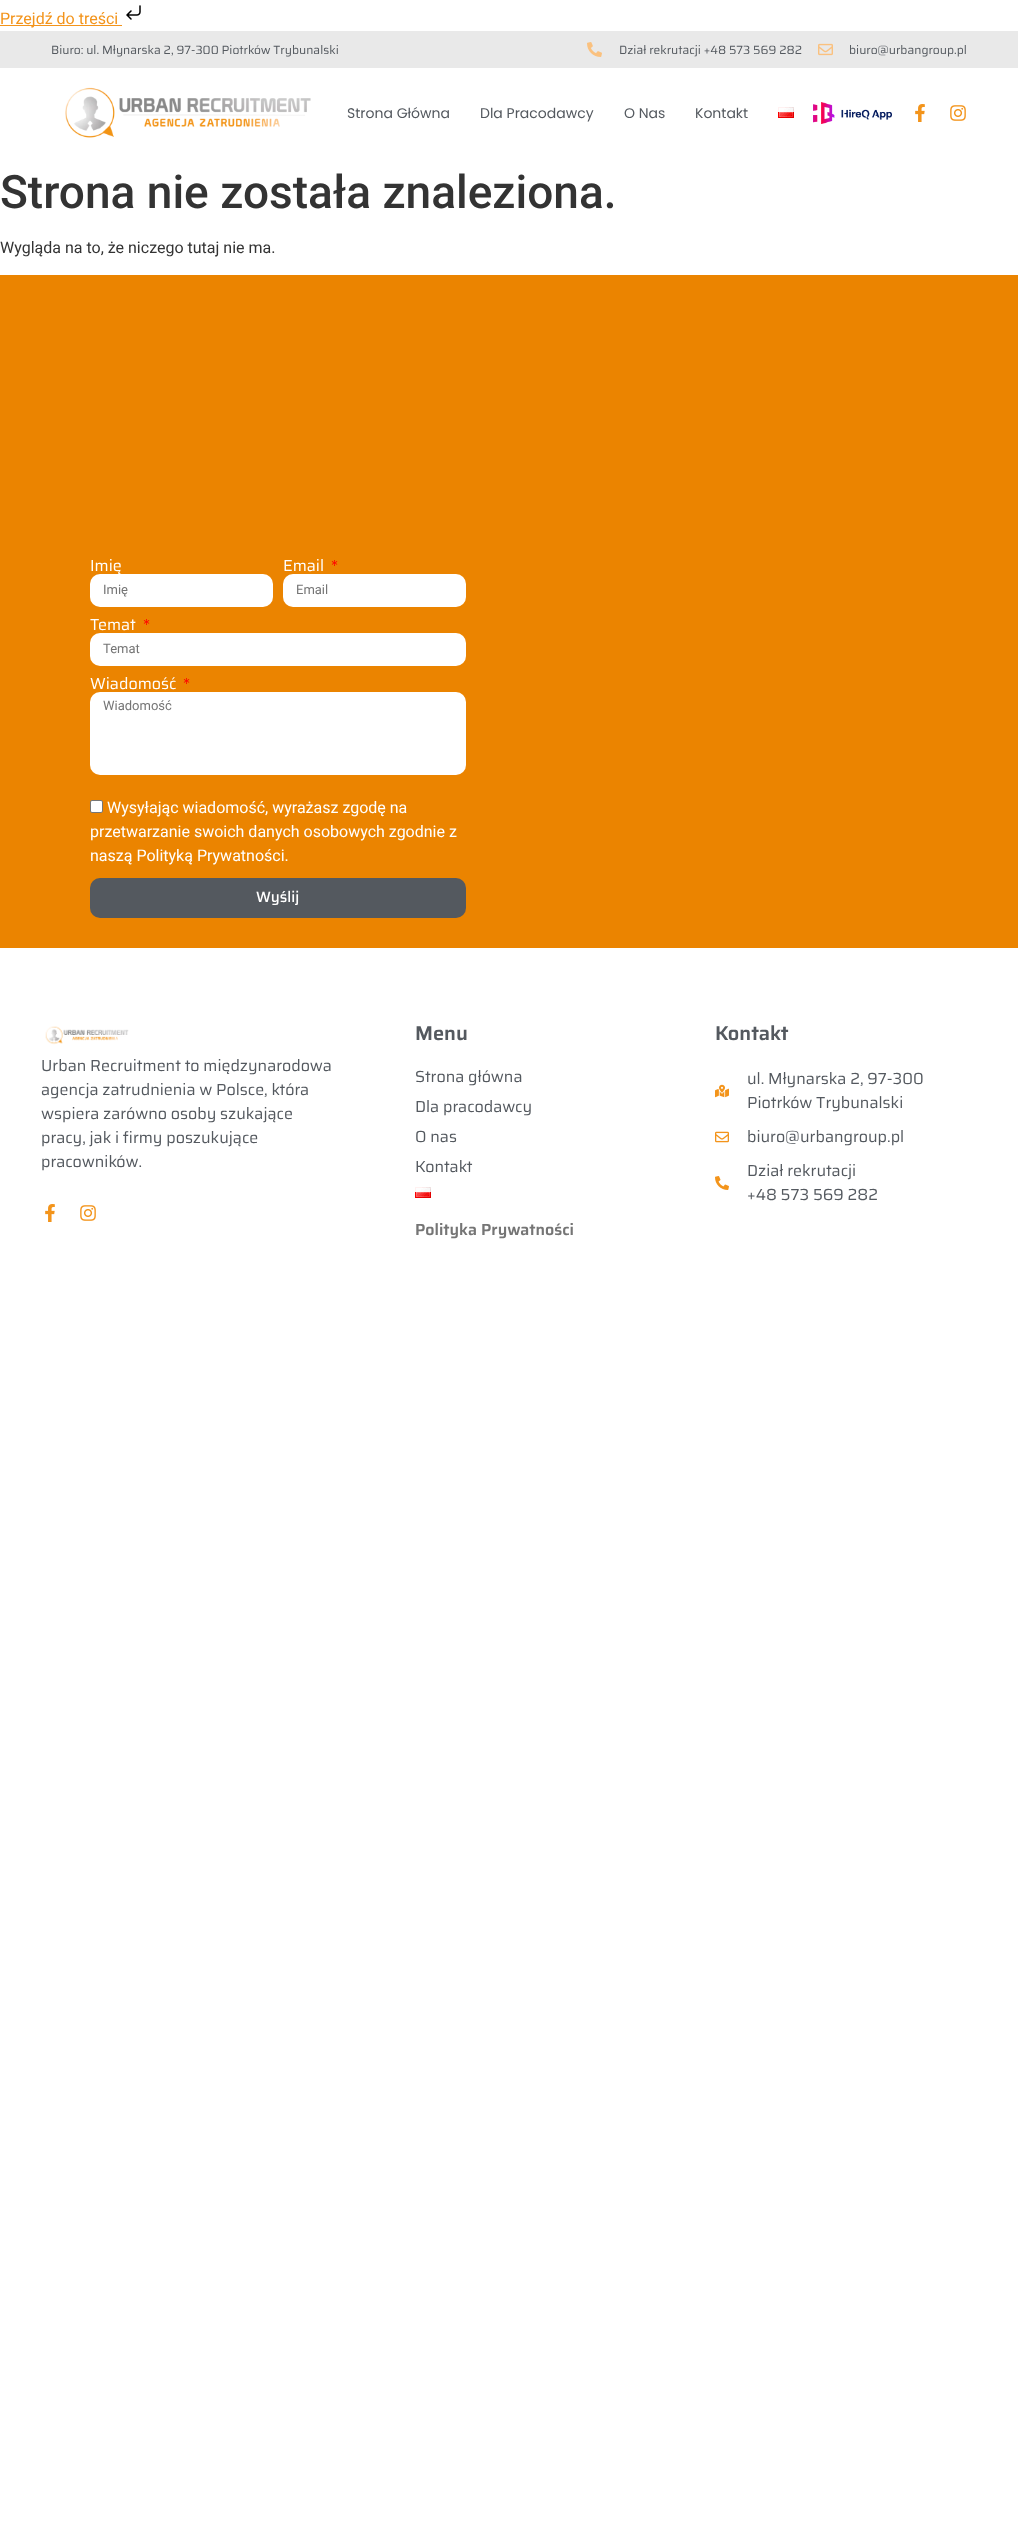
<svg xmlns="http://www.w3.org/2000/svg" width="1018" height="2527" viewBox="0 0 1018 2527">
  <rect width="100%" height="100%" fill="rgb(255,255,255)"/>
  <rect x="0" y="25" width="122" height="1" fill="rgb(243,148,27)"/>
  <text x="0" y="24" font-family="Roboto" font-size="16" fill="rgb(243,148,27)">Przejdź do treści</text>
  <image x="126" y="5" width="15" height="15" href="pic1.png"/>
  <rect x="0" y="31" width="1018" height="37" fill="rgb(233,233,233)"/>
  <text x="51" y="54" font-family="Saira" font-size="12" fill="rgb(84,89,95)">Biuro: ul. Młynarska 2, 97-300 Piotrków Trybunalski</text>
  <image x="587" y="42" width="15" height="15" href="pic2.png"/>
  <text x="619" y="54" font-family="Saira" font-size="12" fill="rgb(84,89,95)">Dział rekrutacji +48 573 569 282</text>
  <image x="818" y="43" width="15" height="13" href="pic3.png"/>
  <text x="849" y="54" font-family="Saira" font-size="12" fill="rgb(84,89,95)">biuro@urbangroup.pl</text>
  <image x="65" y="87" width="246" height="51" href="pic4.png"/>
  <g font-family="Poppins" font-size="14" fill="rgb(84,89,95)">
    <text x="347" y="118">Strona Główna</text>
    <text x="480" y="118">Dla Pracodawcy</text>
    <text x="624" y="118">O Nas</text>
    <text x="695" y="118">Kontakt</text>
  </g>
  <image x="778" y="107" width="16" height="11" href="pic5.png"/>
  <image x="813" y="102" width="79" height="22" href="pic6.png"/>
  <image x="915" y="104" width="10" height="18" href="pic7.png"/>
  <image x="950" y="105" width="16" height="16" href="pic8.png"/>
  <text x="0" y="208" font-family="Roboto" font-size="46" font-weight="500" fill="rgb(51,51,51)">Strona nie została znaleziona.</text>
  <text x="0" y="253" font-family="Roboto" font-size="16" fill="rgb(51,51,51)">Wygląda na to, że niczego tutaj nie ma.</text>
  <rect x="0" y="275" width="1018" height="673" fill="rgb(235,132,0)"/>
  <text x="90" y="571" font-family="Saira" font-size="16" fill="rgb(255,255,255)">Imię</text>
  <rect x="90" y="574" width="183" height="33" rx="10" fill="rgb(255,255,255)"/>
  <text x="103" y="594" font-family="Roboto" font-size="13" fill="rgb(117,117,117)">Imię</text>
  <text x="283" y="571" font-family="Saira" font-size="16" fill="rgb(255,255,255)">Email</text>
  <text x="331" y="571" font-family="Saira" font-size="16" fill="rgb(255,0,0)">*</text>
  <rect x="283" y="574" width="183" height="33" rx="10" fill="rgb(255,255,255)"/>
  <text x="296" y="594" font-family="Roboto" font-size="13" fill="rgb(117,117,117)">Email</text>
  <text x="90" y="630" font-family="Saira" font-size="16" fill="rgb(255,255,255)">Temat</text>
  <text x="143" y="630" font-family="Saira" font-size="16" fill="rgb(255,0,0)">*</text>
  <rect x="90" y="633" width="376" height="33" rx="10" fill="rgb(255,255,255)"/>
  <text x="103" y="653" font-family="Roboto" font-size="13" fill="rgb(117,117,117)">Temat</text>
  <text x="90" y="689" font-family="Saira" font-size="16" fill="rgb(255,255,255)">Wiadomość</text>
  <text x="183" y="689" font-family="Saira" font-size="16" fill="rgb(255,0,0)">*</text>
  <rect x="90" y="692" width="376" height="83" rx="10" fill="rgb(255,255,255)"/>
  <text x="103" y="710" font-family="Roboto" font-size="13" fill="rgb(117,117,117)">Wiadomość</text>
  <rect x="90.5" y="800.5" width="12" height="12" rx="1.5" fill="rgb(255,255,255)" stroke="rgb(118,118,118)"/>
  <g font-family="Roboto" font-size="16" fill="rgb(255,255,255)">
    <text x="107" y="813">Wysyłając wiadomość, wyrażasz zgodę na</text>
    <text>
      <tspan x="90" y="837">przetwarzanie swoich danych osobowych zgodnie z</tspan>
      <tspan x="90" y="861">naszą Polityką Prywatności.</tspan>
    </text>
  </g>
  <rect x="90" y="878" width="376" height="40" rx="10" fill="rgb(84,89,95)"/>
  <text x="256" y="902" font-family="Saira" font-size="15" font-weight="500" fill="rgb(255,255,255)">Wyślij</text>
  <image x="45" y="1026" width="84" height="19" href="pic9.png"/>
  <g font-family="Saira" font-size="16" fill="rgb(84,89,95)">
    <text>
      <tspan x="41" y="1071">Urban Recruitment to międzynarodowa</tspan>
      <tspan x="41" y="1095">agencja zatrudnienia w Polsce, która</tspan>
      <tspan x="41" y="1119">wspiera zarówno osoby szukające</tspan>
      <tspan x="41" y="1143">pracy, jak i firmy poszukujące</tspan>
      <tspan x="41" y="1167">pracowników.</tspan>
    </text>
  </g>
  <image x="45" y="1204" width="10" height="18" href="pic7.png"/>
  <image x="80" y="1205" width="16" height="16" href="pic8.png"/>
  <text x="415" y="1040" font-family="Saira" font-size="20" font-weight="600" fill="rgb(84,89,95)">Menu</text>
  <g font-family="Saira" font-size="16" fill="rgb(84,89,95)">
    <text>
      <tspan x="415" y="1082">Strona główna</tspan>
      <tspan x="415" y="1112">Dla pracodawcy</tspan>
      <tspan x="415" y="1142">O nas</tspan>
      <tspan x="415" y="1172">Kontakt</tspan>
    </text>
  </g>
  <image x="415" y="1187" width="16" height="11" href="pic5.png"/>
  <text x="415" y="1235" font-family="Saira" font-size="16" font-weight="600" fill="rgb(117,117,117)">Polityka Prywatności</text>
  <text x="715" y="1040" font-family="Saira" font-size="20" font-weight="600" fill="rgb(84,89,95)">Kontakt</text>
  <image x="715" y="1084" width="14" height="14" href="pic10.png"/>
  <g font-family="Saira" font-size="16" fill="rgb(84,89,95)">
    <text>
      <tspan x="747" y="1084">ul. Młynarska 2, 97-300</tspan>
      <tspan x="747" y="1108">Piotrków Trybunalski</tspan>
    </text>
  </g>
  <image x="715" y="1131" width="14" height="12" href="pic11.png"/>
  <text x="747" y="1142" font-family="Saira" font-size="16" fill="rgb(84,89,95)">biuro@urbangroup.pl</text>
  <image x="715" y="1176" width="14" height="14" href="pic12.png"/>
  <g font-family="Saira" font-size="16" fill="rgb(84,89,95)">
    <text>
      <tspan x="747" y="1176">Dział rekrutacji</tspan>
      <tspan x="747" y="1200">+48 573 569 282</tspan>
    </text>
  </g>
</svg>
